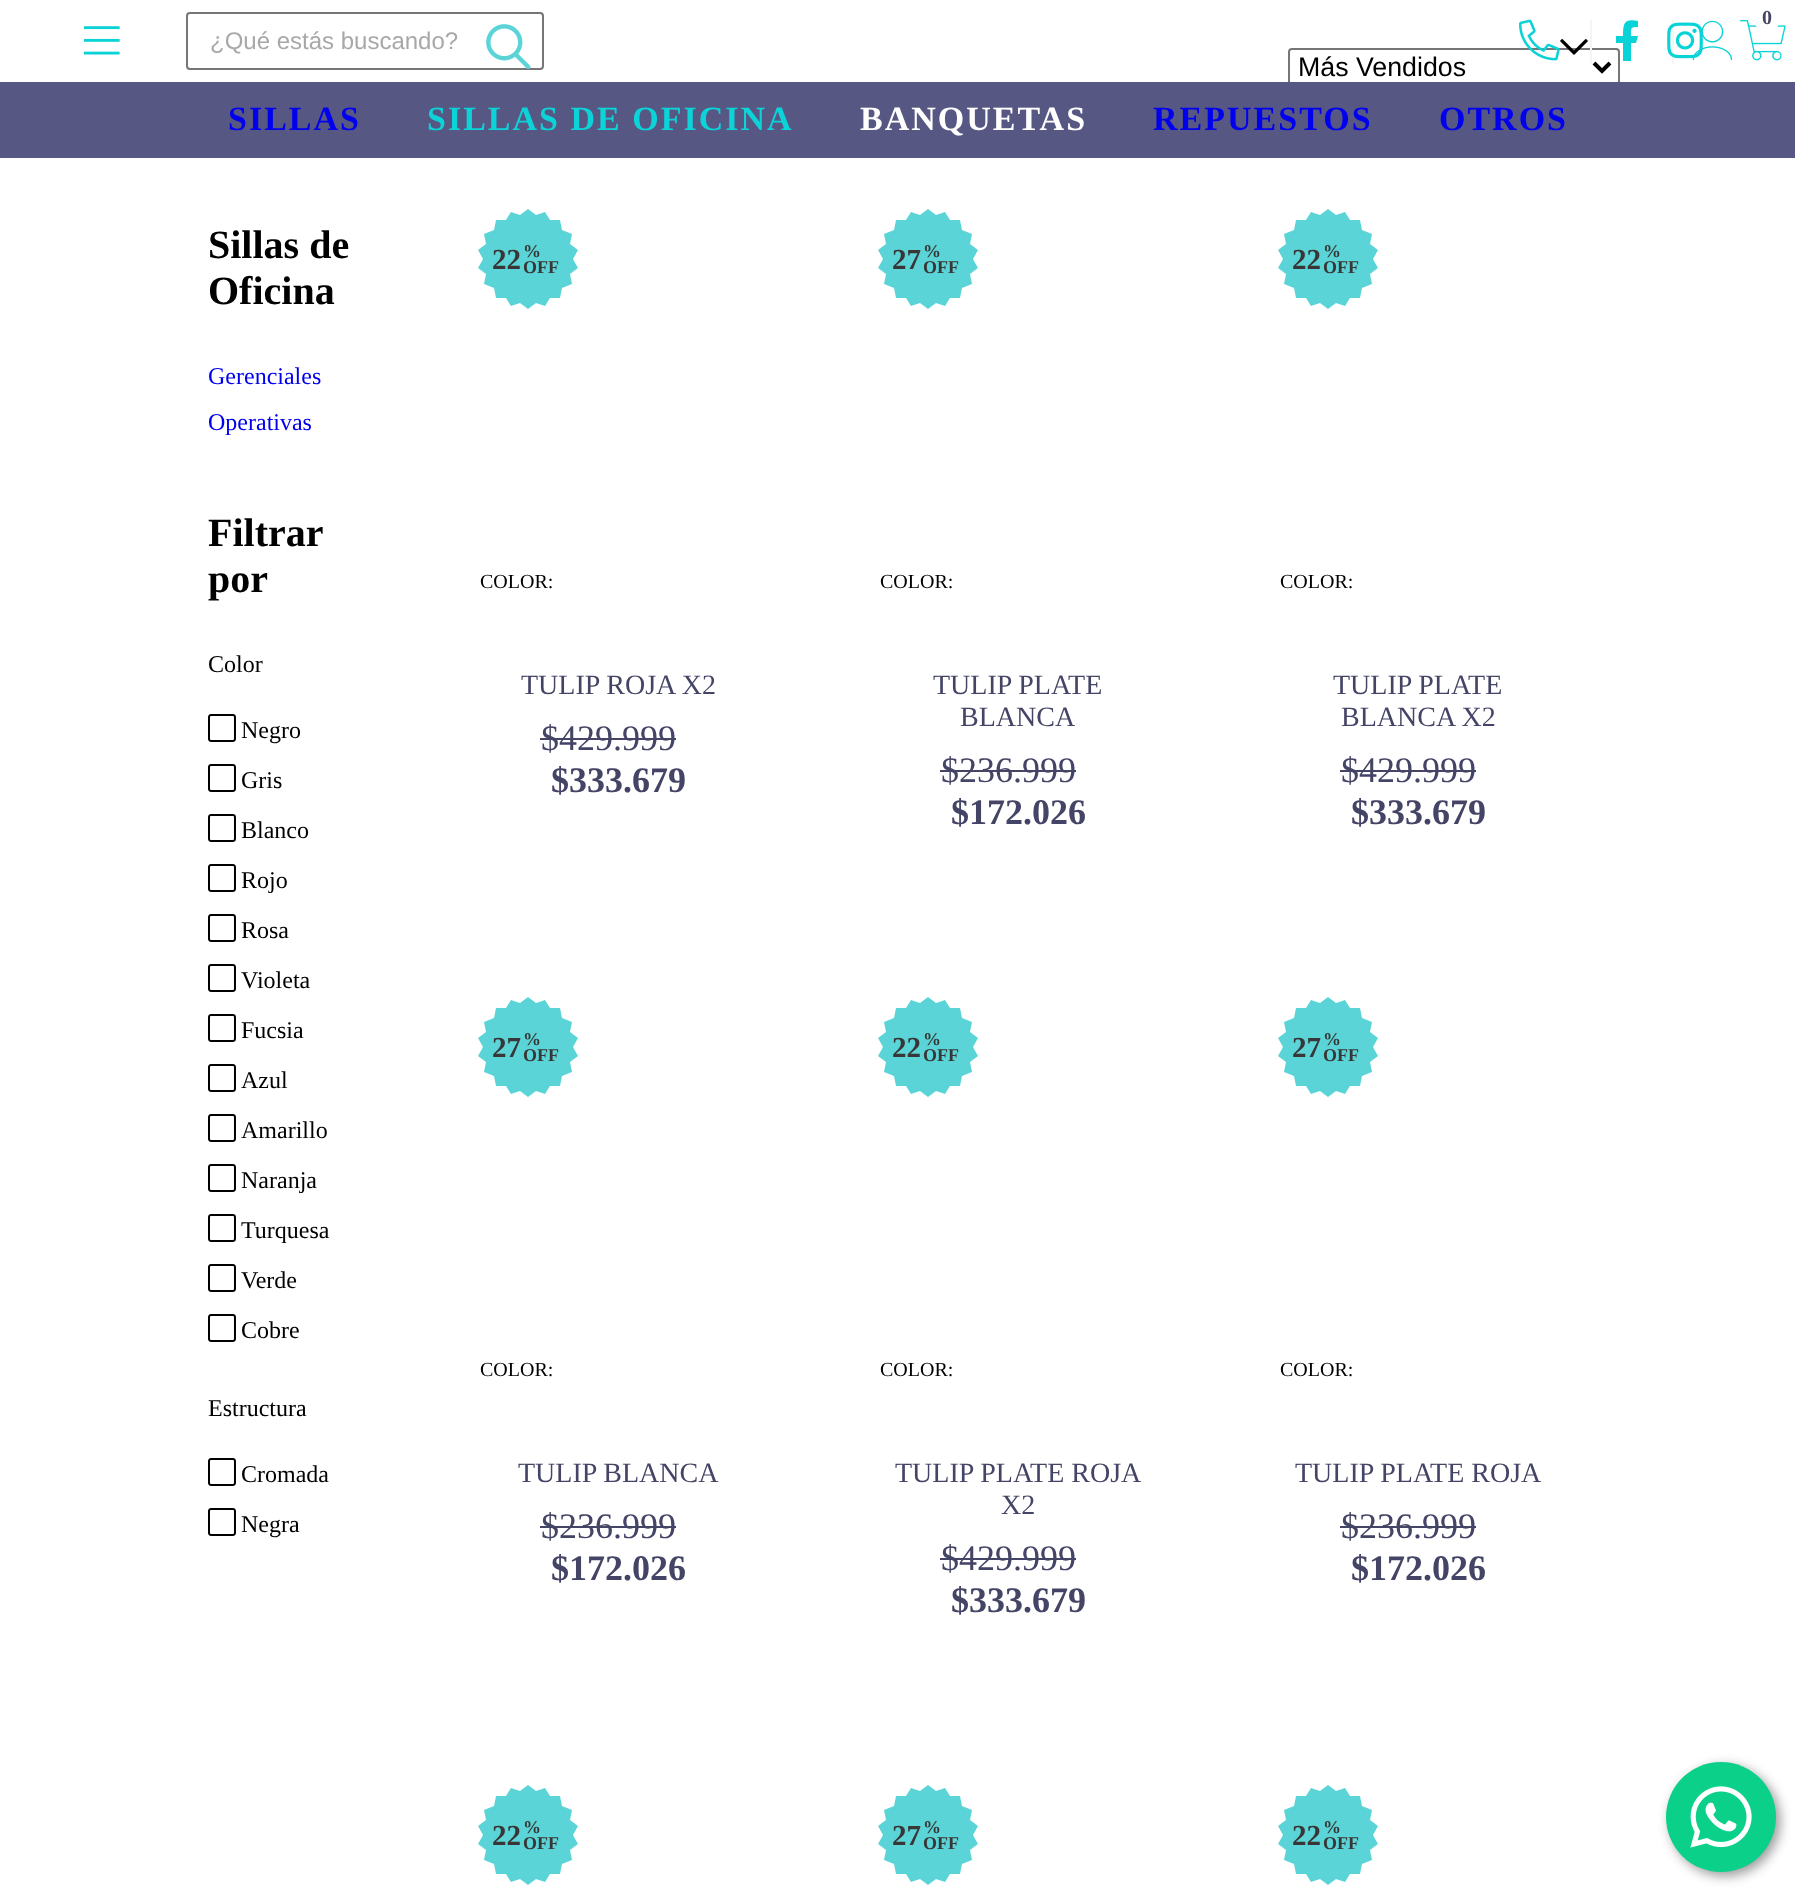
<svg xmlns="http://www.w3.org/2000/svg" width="1795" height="1892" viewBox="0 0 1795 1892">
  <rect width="100%" height="100%" fill="rgb(255,255,255)"/>
  <image x="1740" y="20" width="46" height="41" href="pic1.png"/>
  <rect x="1754" y="2" width="26" height="30" rx="13" fill="rgb(255,255,255)"/>
  <text x="1762" y="24" font-family="Liberation Serif" font-size="20" font-weight="bold" fill="rgb(68,68,102)">0</text>
  <rect x="1672" y="20" width="2" height="44" fill="rgb(245,245,245)"/>
  <rect x="1289" y="49" width="330" height="36" rx="3" fill="none" stroke="rgb(118,118,118)" stroke-width="2"/>
  <rect x="1590" y="20" width="2" height="44" fill="rgb(245,245,245)"/>
  <image x="1518" y="19" width="42" height="42" href="pic2.png"/>
  <path d="M1636 43L1638 36H1631C1631 28 1630 27 1638 27V21C1624 18 1623 23 1623 36H1616V43H1623V61H1631V43Z" fill="rgb(10,211,216)"/>
  <image x="1667" y="22" width="36" height="37" href="pic3.png"/>
  <image x="1692" y="20" width="41" height="41" href="pic4.png"/>
  <image x="84" y="26" width="36" height="29" href="pic5.png"/>
  <rect x="187" y="13" width="356" height="56" rx="3" fill="none" stroke="rgb(118,118,118)" stroke-width="2"/>
  <text x="210" y="49" font-family="Liberation Sans" font-size="24" fill="rgb(168,168,168)">¿Qué estás buscando?</text>
  <image x="486" y="24" width="45" height="45" href="pic6.png"/>
  <rect x="0" y="82" width="1795" height="76" fill="rgb(87,87,132)"/>
  <text x="228" y="130" font-family="Liberation Serif" font-size="34" font-weight="bold" letter-spacing="2" fill="rgb(0,0,238)">SILLAS</text>
  <text x="427" y="130" font-family="Liberation Serif" font-size="34" font-weight="bold" letter-spacing="2" fill="rgb(11,211,216)">SILLAS DE OFICINA</text>
  <text x="860" y="130" font-family="Liberation Serif" font-size="34" font-weight="bold" letter-spacing="2" fill="rgb(255,255,255)">BANQUETAS</text>
  <g font-family="Liberation Serif" font-size="34" font-weight="bold" letter-spacing="2" fill="rgb(0,0,238)">
    <text x="1153" y="130">REPUESTOS</text>
    <text x="1439" y="130">OTROS</text>
  </g>
  <image x="1560" y="39" width="28" height="16" href="pic7.png"/>
  <path d="M1594 63L1602 71L1610 63" fill="none" stroke="rgb(0,0,0)" stroke-width="4"/>
  <text x="1298" y="76" font-family="Liberation Sans" font-size="26.75" fill="rgb(0,0,0)">Más Vendidos</text>
  <g font-family="Liberation Serif" font-size="40" font-weight="bold" fill="rgb(0,0,0)">
    <text>
      <tspan x="208" y="258">Sillas de</tspan>
      <tspan x="208" y="304">Oficina</tspan>
    </text>
  </g>
  <g font-family="Liberation Serif" font-size="24" fill="rgb(0,0,238)">
    <text>
      <tspan x="208" y="384">Gerenciales</tspan>
      <tspan x="208" y="430">Operativas</tspan>
    </text>
  </g>
  <g font-family="Liberation Serif" font-size="40" font-weight="bold" fill="rgb(0,0,0)">
    <text>
      <tspan x="208" y="546">Filtrar</tspan>
      <tspan x="208" y="592">por</tspan>
    </text>
  </g>
  <text x="208" y="672" font-family="Liberation Serif" font-size="24" fill="rgb(0,0,0)">Color</text>
  <image x="208" y="714" width="28" height="28" href="pic8.png"/>
  <text x="241" y="738" font-family="Liberation Serif" font-size="24" fill="rgb(0,0,0)">Negro</text>
  <image x="208" y="764" width="28" height="28" href="pic8.png"/>
  <text x="241" y="788" font-family="Liberation Serif" font-size="24" fill="rgb(0,0,0)">Gris</text>
  <image x="208" y="814" width="28" height="28" href="pic8.png"/>
  <text x="241" y="838" font-family="Liberation Serif" font-size="24" fill="rgb(0,0,0)">Blanco</text>
  <image x="208" y="864" width="28" height="28" href="pic8.png"/>
  <text x="241" y="888" font-family="Liberation Serif" font-size="24" fill="rgb(0,0,0)">Rojo</text>
  <image x="208" y="914" width="28" height="28" href="pic8.png"/>
  <text x="241" y="938" font-family="Liberation Serif" font-size="24" fill="rgb(0,0,0)">Rosa</text>
  <image x="208" y="964" width="28" height="28" href="pic8.png"/>
  <text x="241" y="988" font-family="Liberation Serif" font-size="24" fill="rgb(0,0,0)">Violeta</text>
  <image x="208" y="1014" width="28" height="28" href="pic8.png"/>
  <text x="241" y="1038" font-family="Liberation Serif" font-size="24" fill="rgb(0,0,0)">Fucsia</text>
  <image x="208" y="1064" width="28" height="28" href="pic8.png"/>
  <text x="241" y="1088" font-family="Liberation Serif" font-size="24" fill="rgb(0,0,0)">Azul</text>
  <image x="208" y="1114" width="28" height="28" href="pic8.png"/>
  <text x="241" y="1138" font-family="Liberation Serif" font-size="24" fill="rgb(0,0,0)">Amarillo</text>
  <image x="208" y="1164" width="28" height="28" href="pic8.png"/>
  <text x="241" y="1188" font-family="Liberation Serif" font-size="24" fill="rgb(0,0,0)">Naranja</text>
  <image x="208" y="1214" width="28" height="28" href="pic8.png"/>
  <text x="241" y="1238" font-family="Liberation Serif" font-size="24" fill="rgb(0,0,0)">Turquesa</text>
  <image x="208" y="1264" width="28" height="28" href="pic8.png"/>
  <text x="241" y="1288" font-family="Liberation Serif" font-size="24" fill="rgb(0,0,0)">Verde</text>
  <image x="208" y="1314" width="28" height="28" href="pic8.png"/>
  <g font-family="Liberation Serif" font-size="24" fill="rgb(0,0,0)">
    <text x="241" y="1338">Cobre</text>
    <text x="208" y="1416">Estructura</text>
  </g>
  <image x="208" y="1458" width="28" height="28" href="pic8.png"/>
  <text x="241" y="1482" font-family="Liberation Serif" font-size="24" fill="rgb(0,0,0)">Cromada</text>
  <image x="208" y="1508" width="28" height="28" href="pic8.png"/>
  <text x="241" y="1532" font-family="Liberation Serif" font-size="24" fill="rgb(0,0,0)">Negra</text>
  <path d="M528 209L536 215L545 212L550 220H560L562 230L572 234L570 244L578 250L573 259L578 268L570 274L572 284L562 288L560 298H550L545 306L536 303L528 309L520 303L511 306L506 298H496L494 288L484 284L486 274L478 268L483 259L478 250L486 244L484 234L494 230L496 220H506L511 212L520 215Z" fill="rgb(91,212,216)"/>
  <text x="492" y="269" font-family="Liberation Serif" font-size="29" font-weight="bold" fill="rgb(56,54,54)">22</text>
  <g font-family="Liberation Serif" font-size="18" font-weight="bold" fill="rgb(56,54,54)">
    <text>
      <tspan x="523" y="257">%</tspan>
      <tspan x="523" y="273">OFF</tspan>
    </text>
  </g>
  <text x="480" y="588" font-family="Liberation Serif" font-size="20" fill="rgb(0,0,0)">COLOR:</text>
  <text x="521" y="694" font-family="Liberation Serif" font-size="28" fill="rgb(68,68,102)">TULIP ROJA X2</text>
  <text x="541" y="750" font-family="Liberation Serif" font-size="36" fill="rgb(68,68,102)">$429.999</text>
  <rect x="540" y="738" width="136" height="2" fill="rgb(68,68,102)"/>
  <text x="551" y="792" font-family="Liberation Serif" font-size="36" font-weight="bold" fill="rgb(68,68,102)">$333.679</text>
  <path d="M928 209L936 215L945 212L950 220H960L962 230L972 234L970 244L978 250L973 259L978 268L970 274L972 284L962 288L960 298H950L945 306L936 303L928 309L920 303L911 306L906 298H896L894 288L884 284L886 274L878 268L883 259L878 250L886 244L884 234L894 230L896 220H906L911 212L920 215Z" fill="rgb(91,212,216)"/>
  <text x="892" y="269" font-family="Liberation Serif" font-size="29" font-weight="bold" fill="rgb(56,54,54)">27</text>
  <g font-family="Liberation Serif" font-size="18" font-weight="bold" fill="rgb(56,54,54)">
    <text>
      <tspan x="923" y="257">%</tspan>
      <tspan x="923" y="273">OFF</tspan>
    </text>
  </g>
  <text x="880" y="588" font-family="Liberation Serif" font-size="20" fill="rgb(0,0,0)">COLOR:</text>
  <g font-family="Liberation Serif" font-size="28" fill="rgb(68,68,102)">
    <text x="933" y="694">TULIP PLATE</text>
    <text x="960" y="726">BLANCA</text>
  </g>
  <text x="941" y="782" font-family="Liberation Serif" font-size="36" fill="rgb(68,68,102)">$236.999</text>
  <rect x="940" y="770" width="136" height="2" fill="rgb(68,68,102)"/>
  <text x="951" y="824" font-family="Liberation Serif" font-size="36" font-weight="bold" fill="rgb(68,68,102)">$172.026</text>
  <path d="M1328 209L1336 215L1345 212L1350 220H1360L1362 230L1372 234L1370 244L1378 250L1373 259L1378 268L1370 274L1372 284L1362 288L1360 298H1350L1345 306L1336 303L1328 309L1320 303L1311 306L1306 298H1296L1294 288L1284 284L1286 274L1278 268L1283 259L1278 250L1286 244L1284 234L1294 230L1296 220H1306L1311 212L1320 215Z" fill="rgb(91,212,216)"/>
  <text x="1292" y="269" font-family="Liberation Serif" font-size="29" font-weight="bold" fill="rgb(56,54,54)">22</text>
  <g font-family="Liberation Serif" font-size="18" font-weight="bold" fill="rgb(56,54,54)">
    <text>
      <tspan x="1323" y="257">%</tspan>
      <tspan x="1323" y="273">OFF</tspan>
    </text>
  </g>
  <text x="1280" y="588" font-family="Liberation Serif" font-size="20" fill="rgb(0,0,0)">COLOR:</text>
  <g font-family="Liberation Serif" font-size="28" fill="rgb(68,68,102)">
    <text x="1333" y="694">TULIP PLATE</text>
    <text x="1341" y="726">BLANCA X2</text>
  </g>
  <text x="1341" y="782" font-family="Liberation Serif" font-size="36" fill="rgb(68,68,102)">$429.999</text>
  <rect x="1340" y="770" width="136" height="2" fill="rgb(68,68,102)"/>
  <text x="1351" y="824" font-family="Liberation Serif" font-size="36" font-weight="bold" fill="rgb(68,68,102)">$333.679</text>
  <path d="M528 997L536 1003L545 1000L550 1008H560L562 1018L572 1022L570 1032L578 1038L573 1047L578 1056L570 1062L572 1072L562 1076L560 1086H550L545 1094L536 1091L528 1097L520 1091L511 1094L506 1086H496L494 1076L484 1072L486 1062L478 1056L483 1047L478 1038L486 1032L484 1022L494 1018L496 1008H506L511 1000L520 1003Z" fill="rgb(91,212,216)"/>
  <text x="492" y="1057" font-family="Liberation Serif" font-size="29" font-weight="bold" fill="rgb(56,54,54)">27</text>
  <g font-family="Liberation Serif" font-size="18" font-weight="bold" fill="rgb(56,54,54)">
    <text>
      <tspan x="523" y="1045">%</tspan>
      <tspan x="523" y="1061">OFF</tspan>
    </text>
  </g>
  <text x="480" y="1376" font-family="Liberation Serif" font-size="20" fill="rgb(0,0,0)">COLOR:</text>
  <text x="518" y="1482" font-family="Liberation Serif" font-size="28" fill="rgb(68,68,102)">TULIP BLANCA</text>
  <text x="541" y="1538" font-family="Liberation Serif" font-size="36" fill="rgb(68,68,102)">$236.999</text>
  <rect x="540" y="1526" width="136" height="2" fill="rgb(68,68,102)"/>
  <text x="551" y="1580" font-family="Liberation Serif" font-size="36" font-weight="bold" fill="rgb(68,68,102)">$172.026</text>
  <path d="M928 997L936 1003L945 1000L950 1008H960L962 1018L972 1022L970 1032L978 1038L973 1047L978 1056L970 1062L972 1072L962 1076L960 1086H950L945 1094L936 1091L928 1097L920 1091L911 1094L906 1086H896L894 1076L884 1072L886 1062L878 1056L883 1047L878 1038L886 1032L884 1022L894 1018L896 1008H906L911 1000L920 1003Z" fill="rgb(91,212,216)"/>
  <text x="892" y="1057" font-family="Liberation Serif" font-size="29" font-weight="bold" fill="rgb(56,54,54)">22</text>
  <g font-family="Liberation Serif" font-size="18" font-weight="bold" fill="rgb(56,54,54)">
    <text>
      <tspan x="923" y="1045">%</tspan>
      <tspan x="923" y="1061">OFF</tspan>
    </text>
  </g>
  <text x="880" y="1376" font-family="Liberation Serif" font-size="20" fill="rgb(0,0,0)">COLOR:</text>
  <g font-family="Liberation Serif" font-size="28" fill="rgb(68,68,102)">
    <text x="895" y="1482">TULIP PLATE ROJA</text>
    <text x="1001" y="1514">X2</text>
  </g>
  <text x="941" y="1570" font-family="Liberation Serif" font-size="36" fill="rgb(68,68,102)">$429.999</text>
  <rect x="940" y="1558" width="136" height="2" fill="rgb(68,68,102)"/>
  <text x="951" y="1612" font-family="Liberation Serif" font-size="36" font-weight="bold" fill="rgb(68,68,102)">$333.679</text>
  <path d="M1328 997L1336 1003L1345 1000L1350 1008H1360L1362 1018L1372 1022L1370 1032L1378 1038L1373 1047L1378 1056L1370 1062L1372 1072L1362 1076L1360 1086H1350L1345 1094L1336 1091L1328 1097L1320 1091L1311 1094L1306 1086H1296L1294 1076L1284 1072L1286 1062L1278 1056L1283 1047L1278 1038L1286 1032L1284 1022L1294 1018L1296 1008H1306L1311 1000L1320 1003Z" fill="rgb(91,212,216)"/>
  <text x="1292" y="1057" font-family="Liberation Serif" font-size="29" font-weight="bold" fill="rgb(56,54,54)">27</text>
  <g font-family="Liberation Serif" font-size="18" font-weight="bold" fill="rgb(56,54,54)">
    <text>
      <tspan x="1323" y="1045">%</tspan>
      <tspan x="1323" y="1061">OFF</tspan>
    </text>
  </g>
  <text x="1280" y="1376" font-family="Liberation Serif" font-size="20" fill="rgb(0,0,0)">COLOR:</text>
  <text x="1295" y="1482" font-family="Liberation Serif" font-size="28" fill="rgb(68,68,102)">TULIP PLATE ROJA</text>
  <text x="1341" y="1538" font-family="Liberation Serif" font-size="36" fill="rgb(68,68,102)">$236.999</text>
  <rect x="1340" y="1526" width="136" height="2" fill="rgb(68,68,102)"/>
  <text x="1351" y="1580" font-family="Liberation Serif" font-size="36" font-weight="bold" fill="rgb(68,68,102)">$172.026</text>
  <path d="M528 1785L536 1791L545 1788L550 1796H560L562 1806L572 1810L570 1820L578 1826L573 1835L578 1844L570 1850L572 1860L562 1864L560 1874H550L545 1882L536 1879L528 1885L520 1879L511 1882L506 1874H496L494 1864L484 1860L486 1850L478 1844L483 1835L478 1826L486 1820L484 1810L494 1806L496 1796H506L511 1788L520 1791Z" fill="rgb(91,212,216)"/>
  <text x="492" y="1845" font-family="Liberation Serif" font-size="29" font-weight="bold" fill="rgb(56,54,54)">22</text>
  <g font-family="Liberation Serif" font-size="18" font-weight="bold" fill="rgb(56,54,54)">
    <text>
      <tspan x="523" y="1833">%</tspan>
      <tspan x="523" y="1849">OFF</tspan>
    </text>
  </g>
  <path d="M928 1785L936 1791L945 1788L950 1796H960L962 1806L972 1810L970 1820L978 1826L973 1835L978 1844L970 1850L972 1860L962 1864L960 1874H950L945 1882L936 1879L928 1885L920 1879L911 1882L906 1874H896L894 1864L884 1860L886 1850L878 1844L883 1835L878 1826L886 1820L884 1810L894 1806L896 1796H906L911 1788L920 1791Z" fill="rgb(91,212,216)"/>
  <text x="892" y="1845" font-family="Liberation Serif" font-size="29" font-weight="bold" fill="rgb(56,54,54)">27</text>
  <g font-family="Liberation Serif" font-size="18" font-weight="bold" fill="rgb(56,54,54)">
    <text>
      <tspan x="923" y="1833">%</tspan>
      <tspan x="923" y="1849">OFF</tspan>
    </text>
  </g>
  <path d="M1328 1785L1336 1791L1345 1788L1350 1796H1360L1362 1806L1372 1810L1370 1820L1378 1826L1373 1835L1378 1844L1370 1850L1372 1860L1362 1864L1360 1874H1350L1345 1882L1336 1879L1328 1885L1320 1879L1311 1882L1306 1874H1296L1294 1864L1284 1860L1286 1850L1278 1844L1283 1835L1278 1826L1286 1820L1284 1810L1294 1806L1296 1796H1306L1311 1788L1320 1791Z" fill="rgb(91,212,216)"/>
  <text x="1292" y="1845" font-family="Liberation Serif" font-size="29" font-weight="bold" fill="rgb(56,54,54)">22</text>
  <g font-family="Liberation Serif" font-size="18" font-weight="bold" fill="rgb(56,54,54)">
    <text>
      <tspan x="1323" y="1833">%</tspan>
      <tspan x="1323" y="1849">OFF</tspan>
    </text>
  </g>
  <rect x="1670" y="1766" width="110" height="110" rx="55" fill="rgba(0,0,0,0.4)" filter="blur(6px)"/>
  <circle cx="1721" cy="1817" r="55" fill="rgb(10,208,138)"/>
  <image x="1690" y="1786" width="62" height="62" href="pic9.png"/>
</svg>
